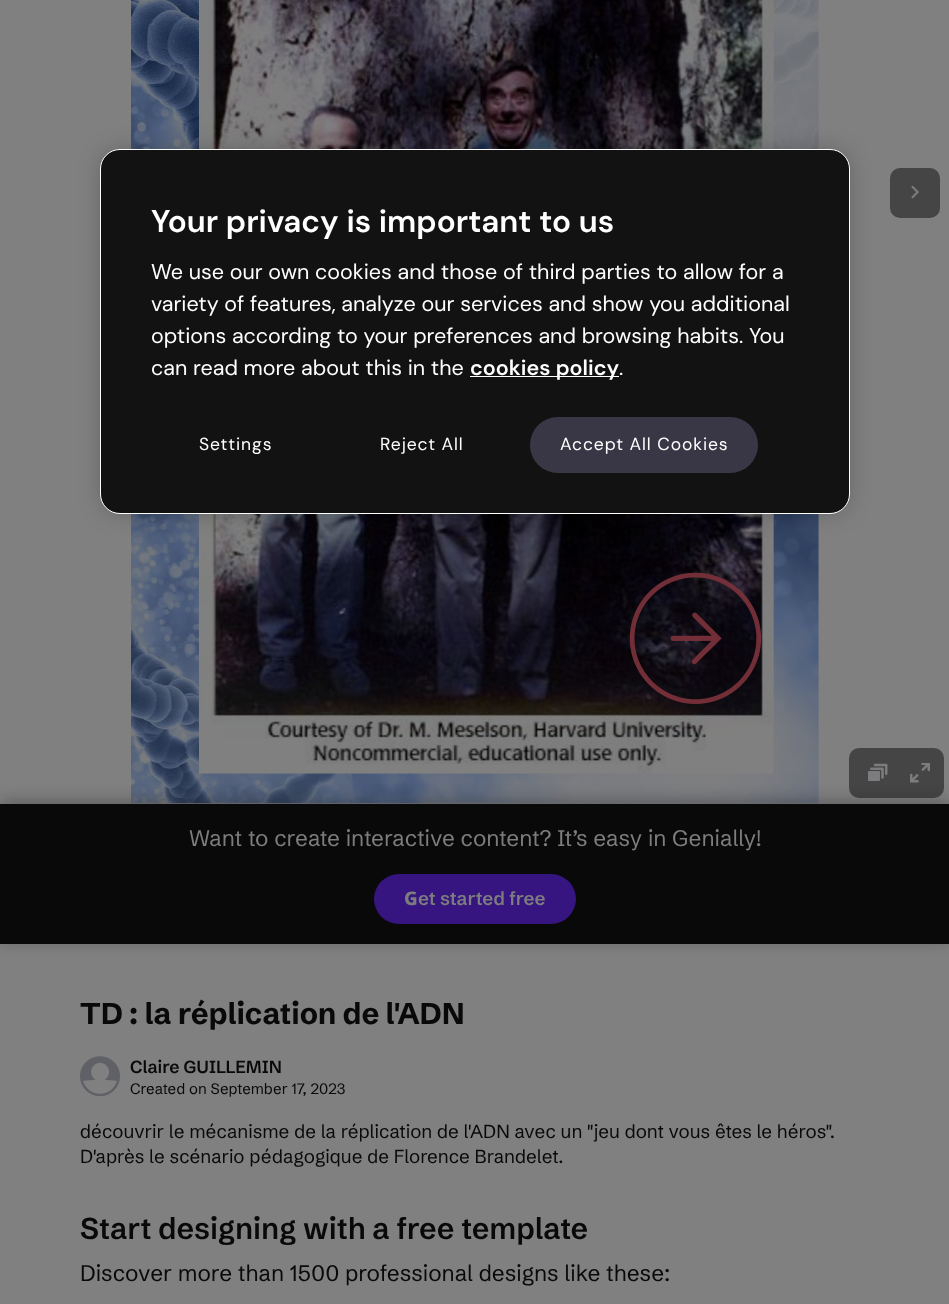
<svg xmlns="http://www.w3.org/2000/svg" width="949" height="1304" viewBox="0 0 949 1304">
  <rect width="100%" height="100%" fill="rgb(128,128,128)"/>
  <image x="131" y="0" width="688" height="804" href="pic1.png"/>
  <image x="199" y="0" width="575" height="774" href="pic2.png"/>
  <rect x="100" y="149" width="750" height="365" rx="20" fill="rgba(0,0,0,0.2)" filter="blur(11px)"/>
  <rect x="100.5" y="149.5" width="749" height="364" rx="19.5" fill="rgb(18,18,18)" stroke="rgb(255,255,255)"/>
  <text x="151" y="232" font-family="DM Sans" font-size="31.5" font-weight="600" fill="rgb(255,255,255)">Your privacy is important to us</text>
  <g font-family="DM Sans" font-size="21.5" fill="rgb(255,255,255)">
    <text>
      <tspan x="151" y="279">We use our own cookies and those of third parties to allow for a</tspan>
      <tspan x="151" y="311">variety of features, analyze our services and show you additional</tspan>
      <tspan x="151" y="343">options according to your preferences and browsing habits. You</tspan>
      <tspan x="151" y="375">can read more about this in the</tspan>
    </text>
  </g>
  <rect x="470" y="376" width="149" height="1" fill="rgb(255,255,255)"/>
  <text x="470" y="375" font-family="DM Sans" font-size="21.5" font-weight="600" fill="rgb(255,255,255)">cookies policy</text>
  <text x="619" y="375" font-family="DM Sans" font-size="21.5" fill="rgb(255,255,255)">.</text>
  <g font-family="DM Sans" font-size="17.5" letter-spacing="0.9" fill="rgb(255,255,255)">
    <text x="199" y="450">Settings</text>
    <text x="380" y="450">Reject All</text>
  </g>
  <rect x="529.5" y="416.5" width="229" height="57" rx="28.5" fill="rgb(57,54,69)" stroke="rgb(18,18,18)"/>
  <text x="560" y="450" font-family="DM Sans" font-size="17.5" letter-spacing="0.9" fill="rgb(255,255,255)">Accept All Cookies</text>
  <image x="629" y="572" width="133" height="132" href="pic3.png"/>
  <rect x="890" y="168" width="50" height="50" rx="10" fill="rgb(69,69,69)"/>
  <image x="911" y="185" width="8" height="14" href="pic4.png"/>
  <rect x="849" y="748" width="95" height="50" rx="10" fill="rgb(69,69,69)"/>
  <image x="868" y="763" width="20" height="18" href="pic5.png"/>
  <image x="910" y="763" width="20" height="20" href="pic6.png"/>
  <rect x="0" y="801" width="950" height="140" fill="rgba(9,9,9,0.3)" filter="blur(8px)"/>
  <rect x="0" y="804" width="949" height="140" fill="rgb(9,9,9)"/>
  <text x="189" y="846" font-family="Schibsted Grotesk" font-size="22.5" fill="rgb(125,124,126)">Want to create interactive content? It’s easy in Genially!</text>
  <rect x="374" y="874" width="202" height="50" rx="25" fill="rgb(54,21,128)"/>
  <text x="404" y="905" font-family="Noto Sans" font-size="18.75" font-weight="800" fill="rgb(125,124,126)">G</text>
  <text x="418" y="905" font-family="Schibsted Grotesk" font-size="18.75" font-weight="600" fill="rgb(125,124,126)">et started free</text>
  <text x="80" y="1024" font-family="Schibsted Grotesk" font-size="30" font-weight="bold" fill="rgb(9,9,9)">TD : la réplication de l'ADN</text>
  <image x="80" y="1056" width="40" height="40" href="pic7.png"/>
  <text x="130" y="1073" font-family="Schibsted Grotesk" font-size="17.5" font-weight="600" fill="rgb(9,9,9)">Claire GUILLEMIN</text>
  <text x="130" y="1094" font-family="Schibsted Grotesk" font-size="15" fill="rgb(9,9,9)">Created on September 17, 2023</text>
  <g font-family="Schibsted Grotesk" font-size="18.75" fill="rgb(9,9,9)">
    <text>
      <tspan x="80" y="1138">découvrir le mécanisme de la réplication de l'ADN avec un "jeu dont vous êtes le héros".</tspan>
      <tspan x="80" y="1163">D'après le scénario pédagogique de Florence Brandelet.</tspan>
    </text>
  </g>
  <text x="80" y="1239" font-family="Schibsted Grotesk" font-size="30" font-weight="600" fill="rgb(9,9,9)">Start designing with a free template</text>
  <text x="80" y="1281" font-family="Schibsted Grotesk" font-size="22.5" fill="rgb(9,9,9)">Discover more than 1500 professional designs like these:</text>
</svg>
